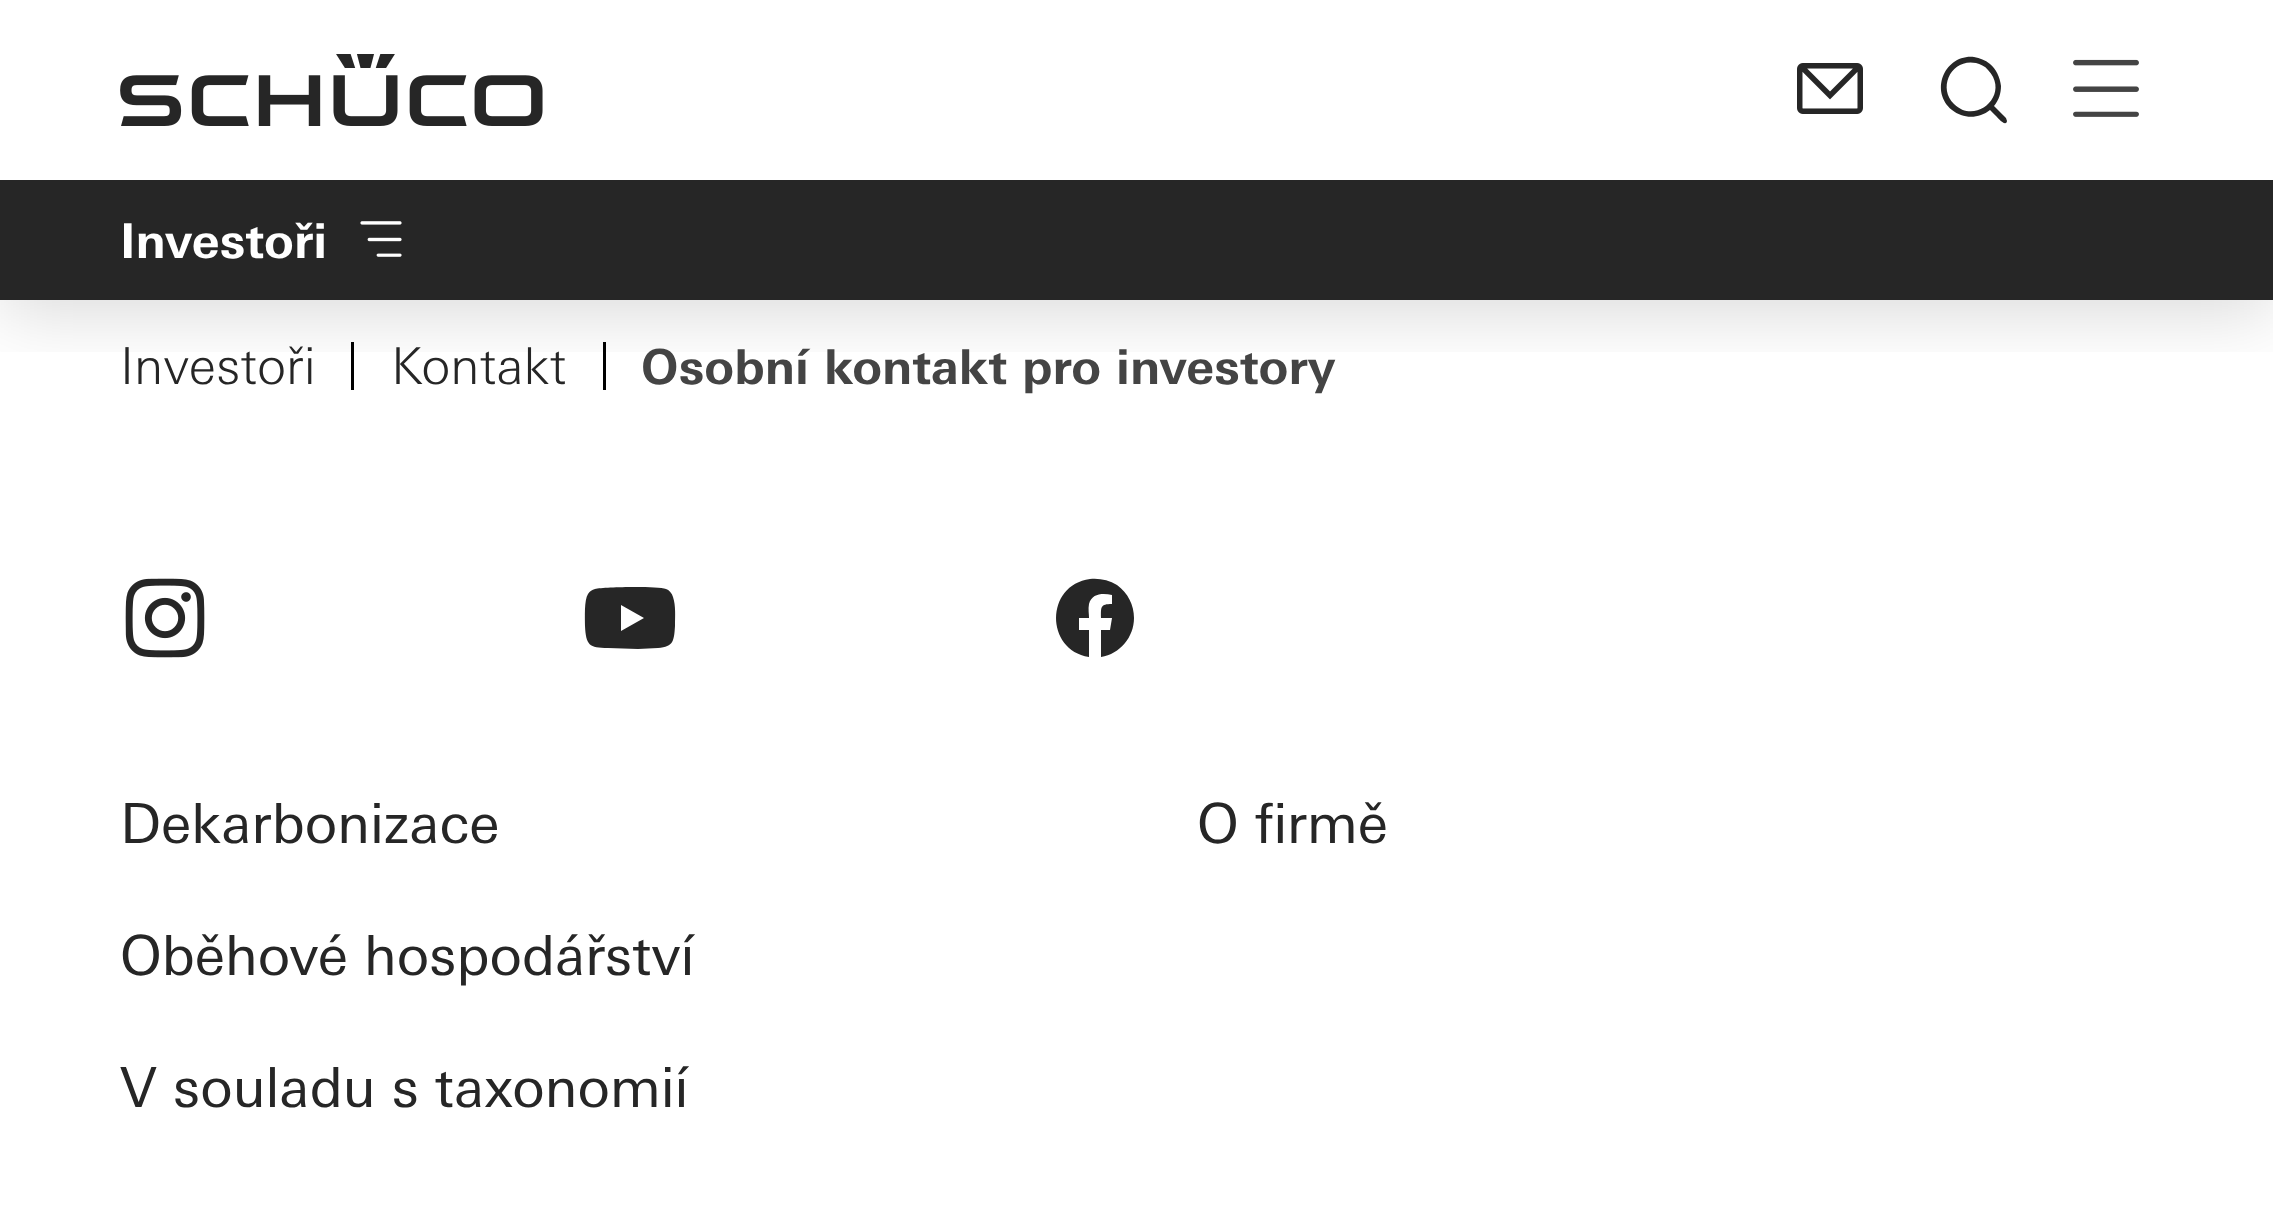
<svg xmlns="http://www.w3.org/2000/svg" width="2273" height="1211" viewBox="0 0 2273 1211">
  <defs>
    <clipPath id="clip1"><rect x="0" y="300" width="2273" height="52"/></clipPath>
  </defs>
  <rect width="100%" height="100%" fill="rgb(255,255,255)"/>
  <image x="120" y="54" width="423" height="72" href="pic1.png"/>
  <image x="1797" y="63" width="66" height="51" href="pic2.png"/>
  <path d="M2006 118L1994 106C1999 100 2001 93 2001 86C2000 77 1996 69 1990 64C1985 60 1980 58 1974 57C1945 54 1929 91 1952 110C1963 119 1979 119 1990 110L1996 116C1996 116 2006 128 2007 121ZM1954 104C1937 87 1952 58 1976 63C1980 64 1985 66 1988 70C2011 94 1976 126 1954 104Z" fill="rgb(38,38,38)"/>
  <image x="2073" y="59" width="66" height="58" href="pic3.png"/>
  <rect x="0" y="180" width="2273" height="120" fill="rgb(38,38,38)"/>
  <image x="360" y="221" width="42" height="36" href="pic4.png"/>
  <rect x="351" y="342" width="3" height="48" fill="rgb(0,0,0)"/>
  <rect x="603" y="342" width="3" height="48" fill="rgb(0,0,0)"/>
  <g clip-path="url(#clip1)">
    <rect x="0" y="12" width="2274" height="300" fill="rgba(0,0,0,0.15)" filter="blur(36px)"/>
  </g>
  <text x="120" y="258" font-family="Univers" font-size="48" font-weight="bold" fill="rgb(255,255,255)">Investoři</text>
  <g font-family="univers" font-size="51" font-weight="300" fill="rgb(38,38,38)">
    <text x="120" y="384">Investoři</text>
    <text x="391" y="384">Kontakt</text>
  </g>
  <text x="641" y="384" font-family="Univers" font-size="48" font-weight="bold" fill="rgb(68,68,68)">Osobní kontakt pro investory</text>
  <image x="125" y="578" width="80" height="80" href="pic5.png"/>
  <path d="M673 597C672 593 669 590 666 589C657 586 604 587 595 589C592 590 590 591 588 594C584 600 585 618 585 626C586 645 589 648 608 648L638 649L658 648C674 647 674 640 675 626C675 617 676 606 673 597ZM621 631V605L644 618Z" fill="rgb(38,38,38)"/>
  <path d="M1134 618C1134 605 1128 593 1117 585C1109 580 1099 578 1090 579C1045 585 1045 650 1089 657V630H1079V618H1089C1089 614 1088 609 1089 604C1092 593 1103 593 1112 595V604C1100 604 1101 607 1101 618H1112L1110 630H1101V657C1120 654 1134 637 1134 618Z" fill="rgb(38,38,38)"/>
  <g font-family="Univers" font-size="55.25" fill="rgb(38,38,38)">
    <text x="120" y="843">Dekarbonizace</text>
    <text x="120" y="975">Oběhové hospodářství</text>
    <text x="120" y="1107">V souladu s taxonomií</text>
    <text x="1197" y="843">O firmě</text>
  </g>
</svg>
